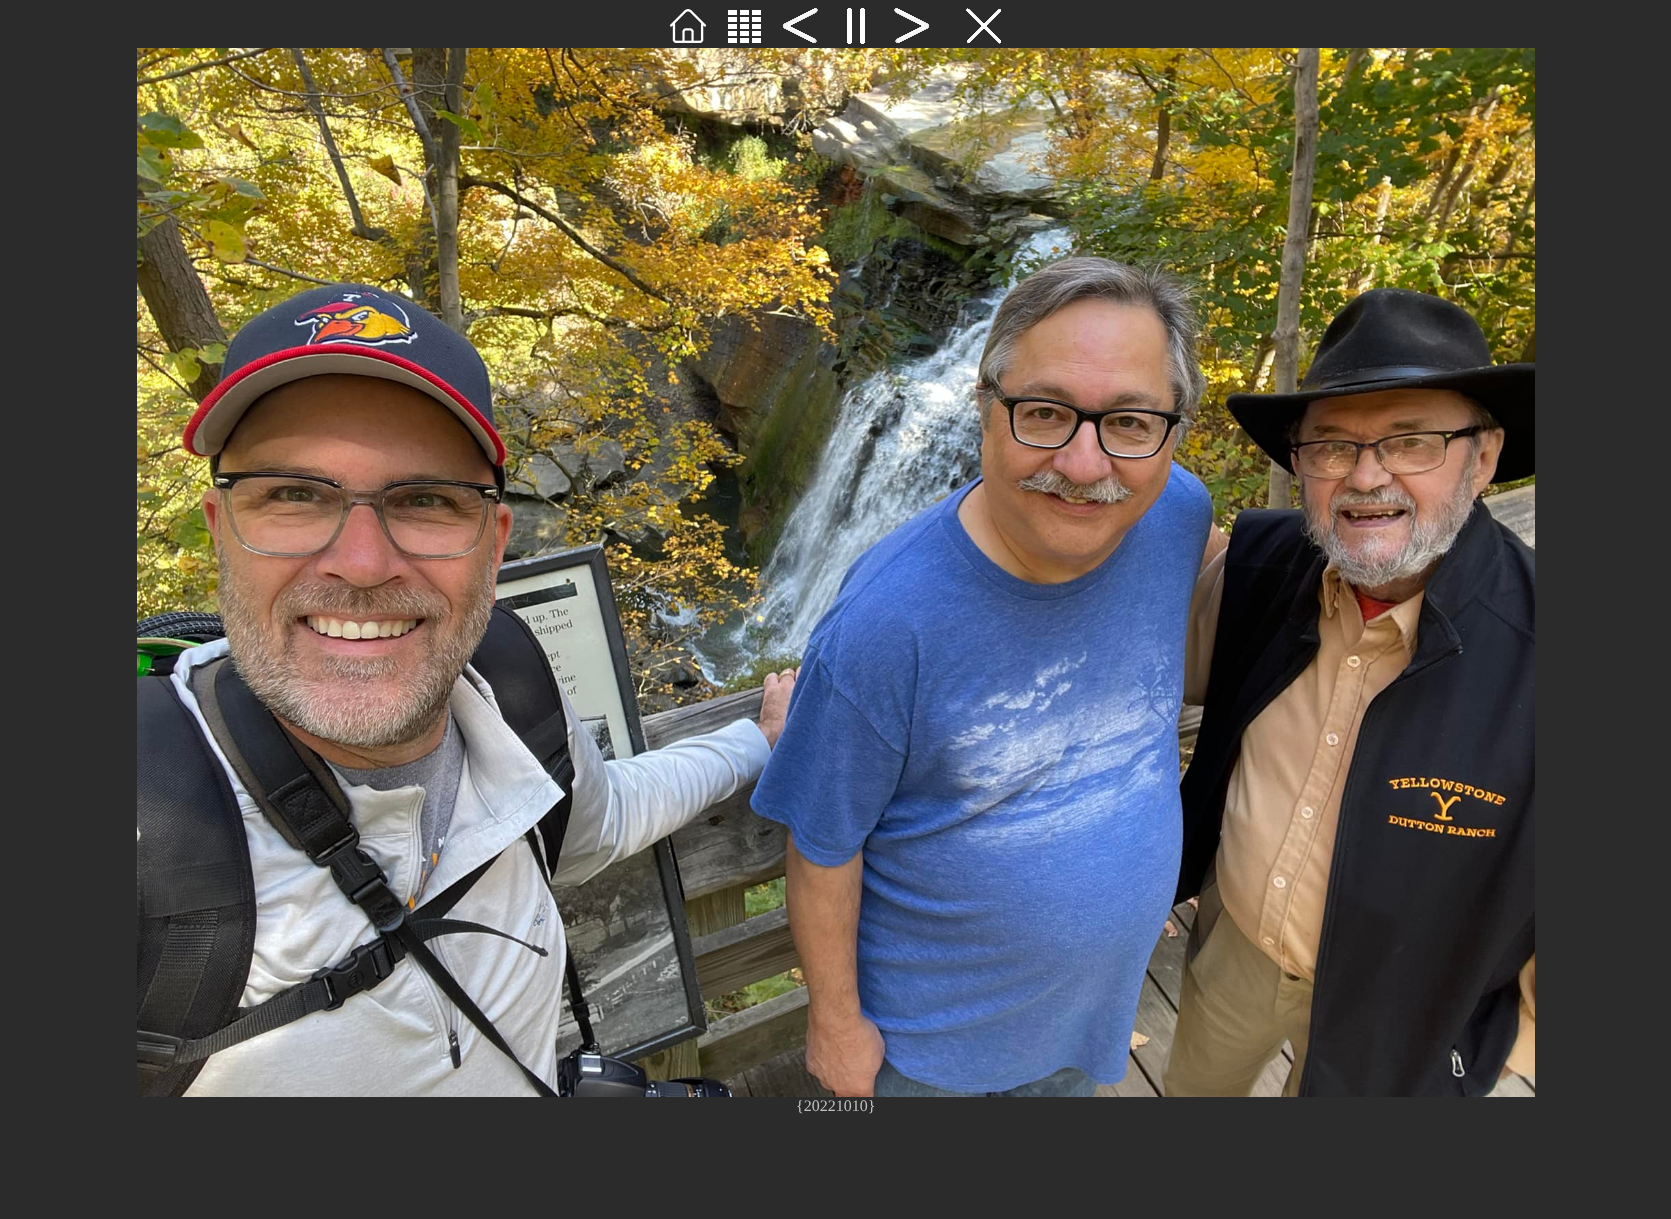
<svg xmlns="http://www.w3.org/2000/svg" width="1671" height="1219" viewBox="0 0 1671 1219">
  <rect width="100%" height="100%" fill="rgb(43,43,43)"/>
  <image x="670" y="9" width="36" height="34" href="pic1.png"/>
  <image x="728" y="10" width="33" height="33" href="pic2.png"/>
  <image x="782" y="8" width="36" height="35" href="pic3.png"/>
  <image x="847" y="8" width="18" height="36" href="pic4.png"/>
  <image x="894" y="8" width="36" height="35" href="pic5.png"/>
  <image x="966" y="8" width="35" height="36" href="pic6.png"/>
  <image x="137" y="48" width="1398" height="1049" href="pic7.png"/>
  <text x="796" y="1111" font-family="Liberation Serif" font-size="16" fill="rgb(192,192,192)">{20221010}</text>
</svg>
